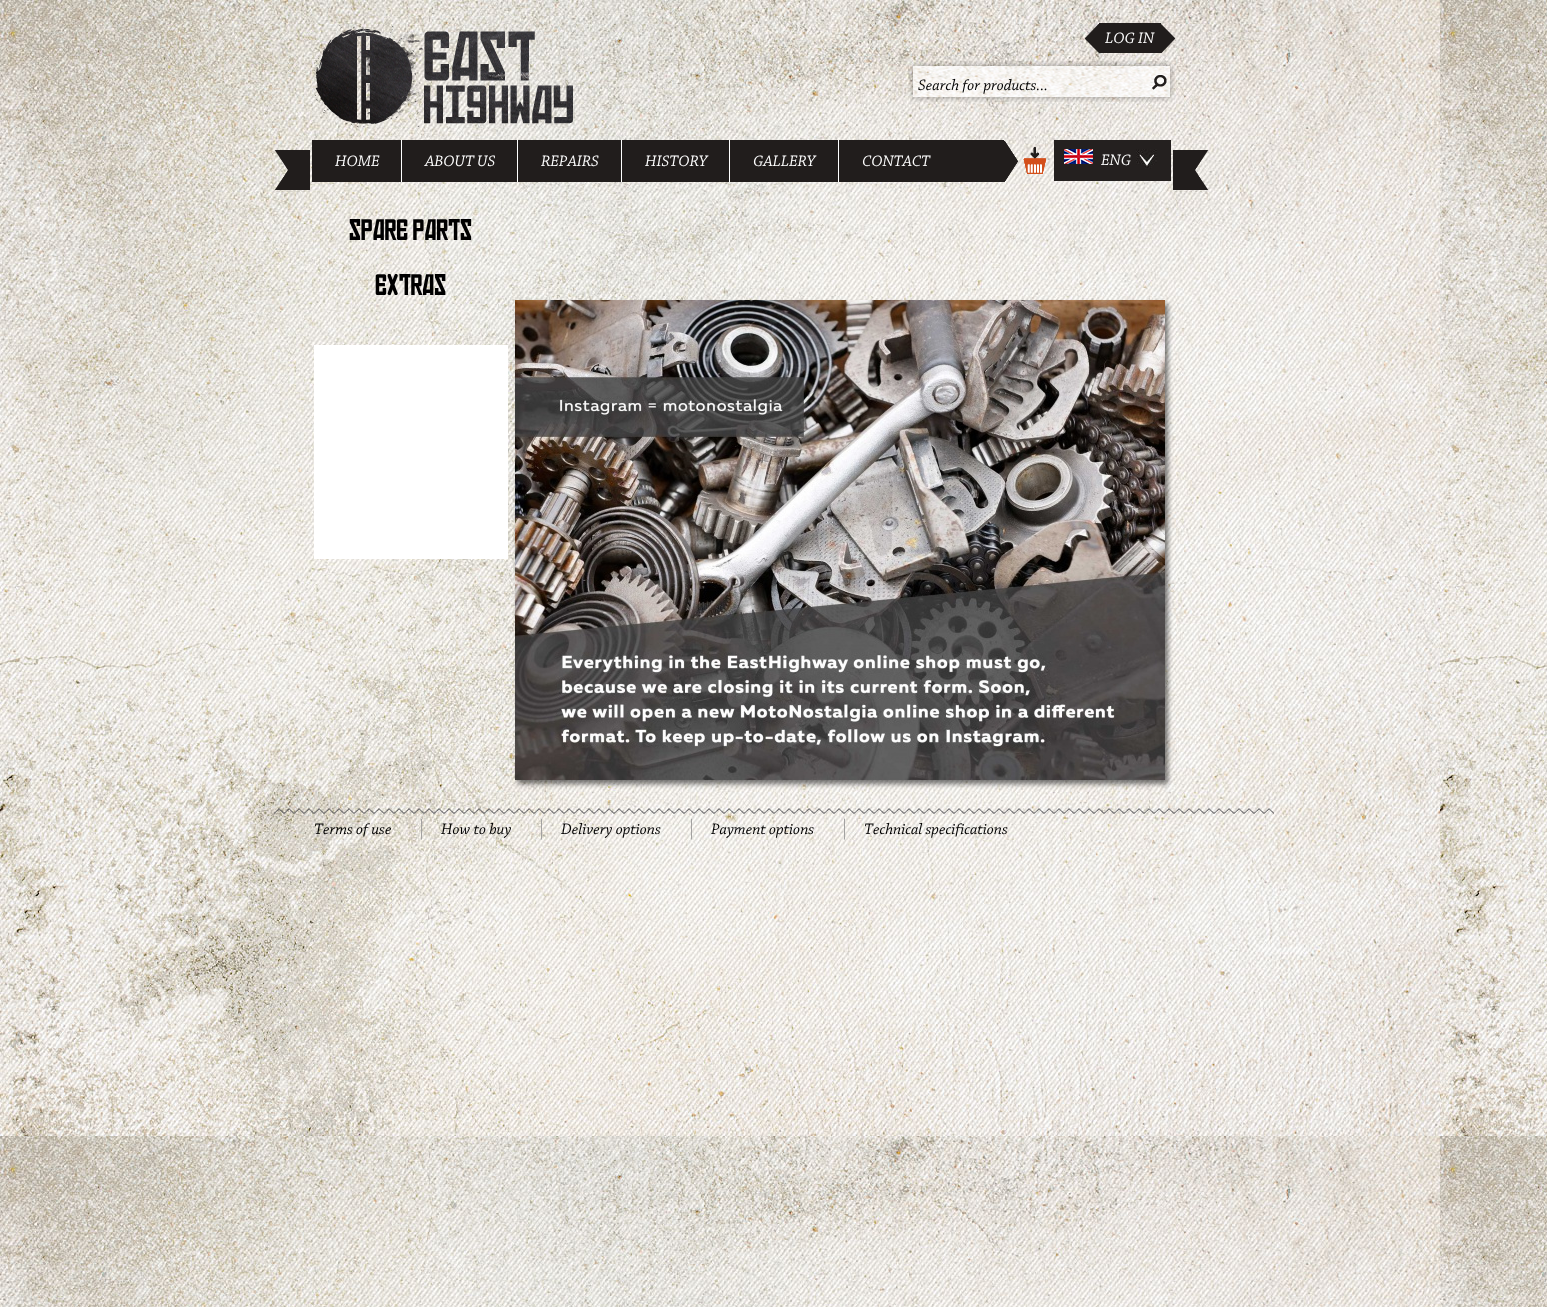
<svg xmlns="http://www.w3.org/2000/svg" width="1547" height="1307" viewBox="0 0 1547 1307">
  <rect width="100%" height="100%" fill="rgb(255,255,255)"/>
  <image x="0" y="0" width="1547" height="1307" href="pic1.png"/>
  <image x="314" y="25" width="259" height="102" href="pic2.png"/>
  <image x="1085" y="24" width="14" height="29" href="pic3.png"/>
  <rect x="1099" y="23" width="62" height="30" fill="rgb(33,29,28)"/>
  <text x="1105" y="43" font-family="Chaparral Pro" font-size="16" font-style="italic" fill="rgb(255,255,255)">LOG IN</text>
  <image x="1161" y="24" width="14" height="29" href="pic4.png"/>
  <image x="908" y="61" width="267" height="41" href="pic5.png"/>
  <text x="918" y="90" font-family="Chaparral Pro" font-size="16" font-style="italic" fill="rgb(0,0,0)">Search for products...</text>
  <image x="1152" y="75" width="15" height="15" href="pic6.png"/>
  <image x="274" y="148" width="36" height="44" href="pic7.png"/>
  <rect x="312" y="140" width="692" height="42" fill="rgb(33,29,28)"/>
  <rect x="401" y="140" width="1" height="42" fill="rgb(255,255,255)"/>
  <text x="335" y="166" font-family="Chaparral Pro" font-size="16" font-style="italic" fill="rgb(255,255,255)">HOME</text>
  <rect x="517" y="140" width="1" height="42" fill="rgb(255,255,255)"/>
  <text x="425" y="166" font-family="Chaparral Pro" font-size="16" font-style="italic" fill="rgb(255,255,255)">ABOUT US</text>
  <rect x="621" y="140" width="1" height="42" fill="rgb(255,255,255)"/>
  <text x="541" y="166" font-family="Chaparral Pro" font-size="16" font-style="italic" fill="rgb(255,255,255)">REPAIRS</text>
  <rect x="729" y="140" width="1" height="42" fill="rgb(255,255,255)"/>
  <text x="645" y="166" font-family="Chaparral Pro" font-size="16" font-style="italic" fill="rgb(255,255,255)">HISTORY</text>
  <rect x="838" y="140" width="1" height="42" fill="rgb(255,255,255)"/>
  <g font-family="Chaparral Pro" font-size="16" font-style="italic" fill="rgb(255,255,255)">
    <text x="753" y="166">GALLERY</text>
    <text x="862" y="166">CONTACT</text>
  </g>
  <image x="1004" y="141" width="42" height="41" href="pic8.png"/>
  <image x="1004" y="141" width="42" height="41" href="pic9.png"/>
  <rect x="1054" y="140" width="117" height="41" fill="rgb(36,32,31)"/>
  <image x="1064" y="149" width="29" height="15" href="pic10.png"/>
  <text x="1101" y="165" font-family="Chaparral Pro" font-size="16" font-style="italic" fill="rgb(255,255,255)">ENG</text>
  <image x="1136" y="149" width="21" height="20" href="pic11.png"/>
  <image x="1173" y="148" width="36" height="44" href="pic12.png"/>
  <g font-family="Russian" font-size="25" font-weight="500" fill="rgb(0,0,0)">
    <text x="349" y="240">SPARE PARTS</text>
    <text x="375" y="295">EXTRAS</text>
  </g>
  <rect x="314" y="345" width="194" height="214" fill="rgb(255,255,255)"/>
  <rect x="518" y="304" width="650" height="480" fill="rgba(50,50,50,0.65)" filter="blur(2.5px)"/>
  <image x="515" y="300" width="650" height="480" href="pic13.png"/>
  <image x="274" y="808" width="1000" height="6" href="pic14.png"/>
  <text x="314" y="834" font-family="Chaparral Pro" font-size="16" font-style="italic" fill="rgb(0,0,0)">Terms of use</text>
  <image x="421" y="818" width="1" height="22" href="pic15.png"/>
  <text x="441" y="834" font-family="Chaparral Pro" font-size="16" font-style="italic" fill="rgb(0,0,0)">How to buy</text>
  <image x="541" y="818" width="1" height="22" href="pic15.png"/>
  <text x="561" y="834" font-family="Chaparral Pro" font-size="16" font-style="italic" fill="rgb(0,0,0)">Delivery options</text>
  <image x="691" y="818" width="1" height="22" href="pic15.png"/>
  <text x="711" y="834" font-family="Chaparral Pro" font-size="16" font-style="italic" fill="rgb(0,0,0)">Payment options</text>
  <image x="844" y="818" width="1" height="22" href="pic15.png"/>
  <text x="864" y="834" font-family="Chaparral Pro" font-size="16" font-style="italic" fill="rgb(0,0,0)">Technical specifications</text>
</svg>
